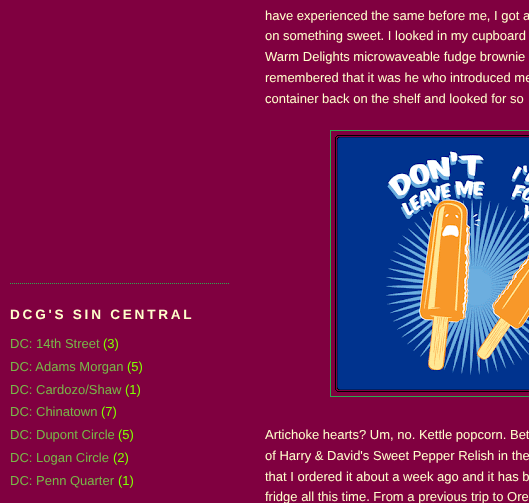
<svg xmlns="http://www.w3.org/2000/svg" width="529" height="503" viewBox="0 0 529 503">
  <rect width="100%" height="100%" fill="rgb(128,0,64)"/>
  <path d="M10 283.5H230" fill="none" stroke="rgb(43,169,79)" stroke-dasharray="1 1"/>
  <text x="10" y="319" font-family="Liberation Sans" font-size="13.6" font-weight="bold" letter-spacing="2.75" fill="rgb(255,255,204)">DCG'S SIN CENTRAL</text>
  <text x="10" y="348" font-family="Liberation Sans" font-size="13" fill="rgb(120,183,73)">DC: 14th Street</text>
  <text x="103" y="348" font-family="Liberation Sans" font-size="13" fill="rgb(128,255,0)">(3)</text>
  <text x="10" y="371" font-family="Liberation Sans" font-size="13" fill="rgb(120,183,73)">DC: Adams Morgan</text>
  <text x="127" y="371" font-family="Liberation Sans" font-size="13" fill="rgb(128,255,0)">(5)</text>
  <text x="10" y="394" font-family="Liberation Sans" font-size="13" fill="rgb(120,183,73)">DC: Cardozo/Shaw</text>
  <text x="125" y="394" font-family="Liberation Sans" font-size="13" fill="rgb(128,255,0)">(1)</text>
  <text x="10" y="416" font-family="Liberation Sans" font-size="13" fill="rgb(120,183,73)">DC: Chinatown</text>
  <text x="101" y="416" font-family="Liberation Sans" font-size="13" fill="rgb(128,255,0)">(7)</text>
  <text x="10" y="439" font-family="Liberation Sans" font-size="13" fill="rgb(120,183,73)">DC: Dupont Circle</text>
  <text x="118" y="439" font-family="Liberation Sans" font-size="13" fill="rgb(128,255,0)">(5)</text>
  <text x="10" y="462" font-family="Liberation Sans" font-size="13" fill="rgb(120,183,73)">DC: Logan Circle</text>
  <text x="113" y="462" font-family="Liberation Sans" font-size="13" fill="rgb(128,255,0)">(2)</text>
  <text x="10" y="485" font-family="Liberation Sans" font-size="13" fill="rgb(120,183,73)">DC: Penn Quarter</text>
  <text x="118" y="485" font-family="Liberation Sans" font-size="13" fill="rgb(128,255,0)">(1)</text>
  <g font-family="Liberation Sans" font-size="13" fill="rgb(255,255,204)">
    <text>
      <tspan x="265" y="20">have experienced the same before me, I got a</tspan>
      <tspan x="265" y="40">on something sweet. I looked in my cupboard</tspan>
      <tspan x="265" y="61">Warm Delights microwaveable fudge brownie</tspan>
      <tspan x="265" y="82">remembered that it was he who introduced me</tspan>
      <tspan x="265" y="103">container back on the shelf and looked for so</tspan>
    </text>
  </g>
  <rect x="330.5" y="130.5" width="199" height="266" fill="none" stroke="rgb(43,169,79)"/>
  <image x="335" y="135" width="194" height="257" href="pic1.png"/>
  <g font-family="Liberation Sans" font-size="13" fill="rgb(255,255,204)">
    <text>
      <tspan x="265" y="439">Artichoke hearts? Um, no. Kettle popcorn. Bet</tspan>
      <tspan x="265" y="460">of Harry &amp; David's Sweet Pepper Relish in the</tspan>
      <tspan x="265" y="481">that I ordered it about a week ago and it has b</tspan>
      <tspan x="265" y="501">fridge all this time. From a previous trip to Ore</tspan>
    </text>
  </g>
</svg>
